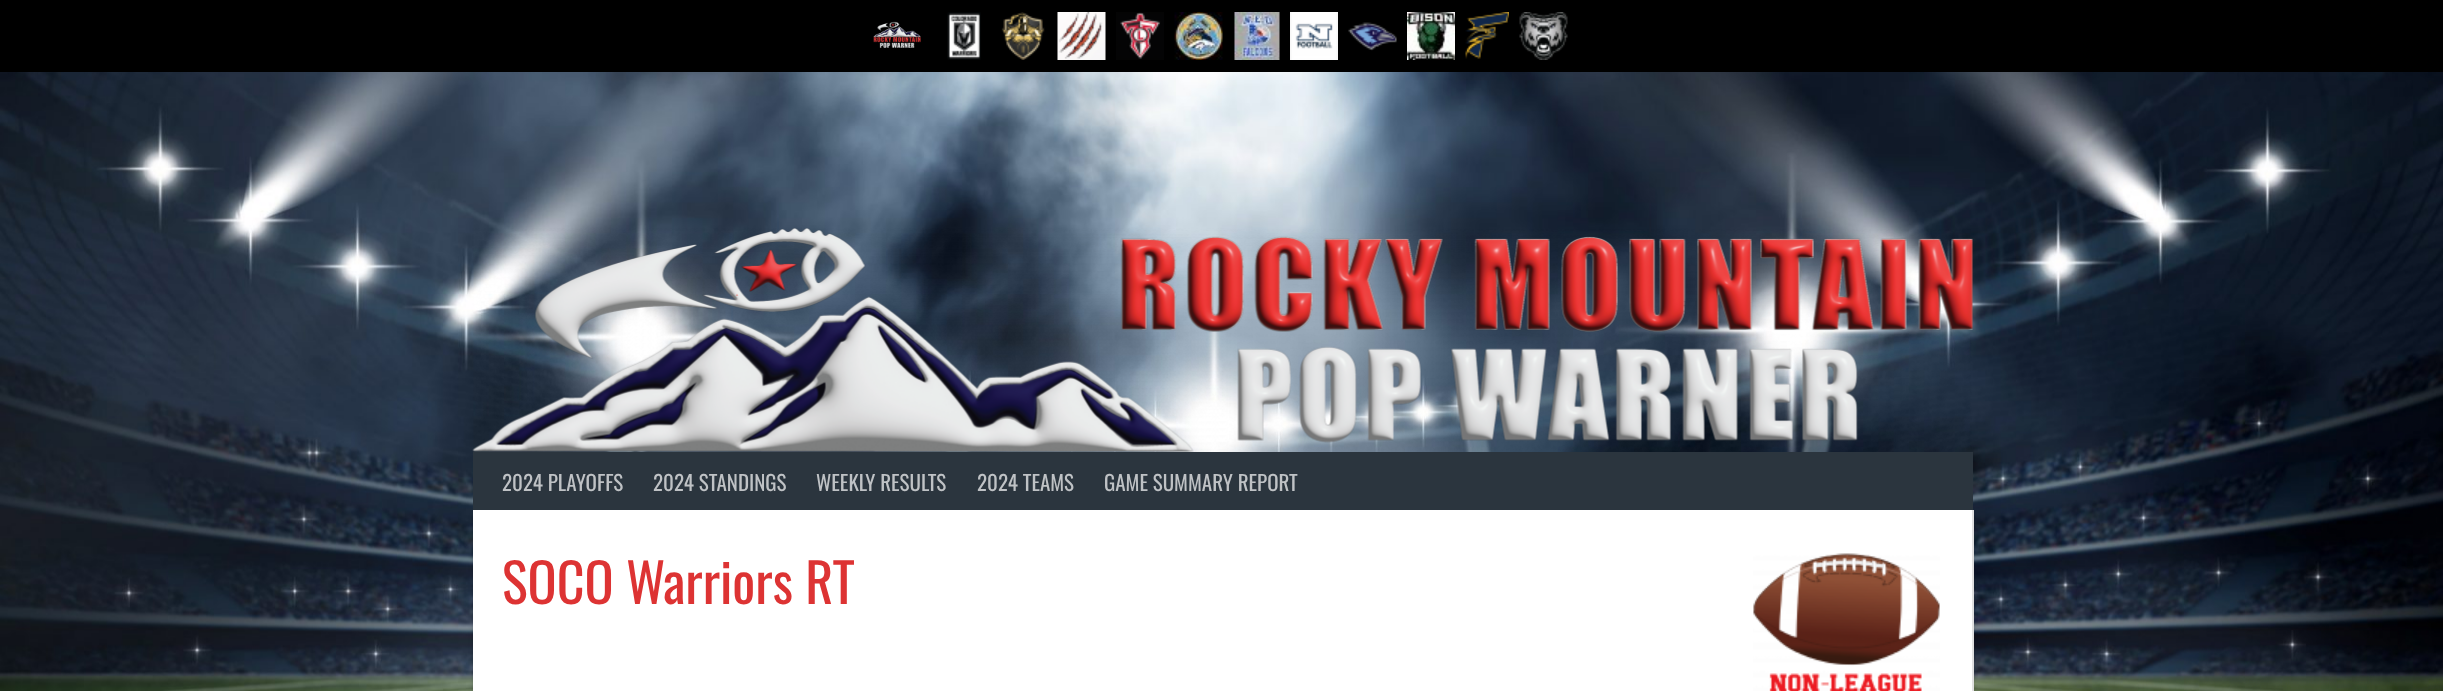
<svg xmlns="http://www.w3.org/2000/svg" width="2443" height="691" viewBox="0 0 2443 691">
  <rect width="100%" height="100%" fill="rgb(255,255,255)"/>
  <image x="0" y="72" width="2443" height="619" href="pic1.png"/>
  <rect x="0" y="0" width="2443" height="72" fill="rgb(0,0,0)"/>
  <image x="873" y="21" width="48" height="27" href="pic2.png"/>
  <image x="947" y="12" width="34" height="48" href="pic3.png"/>
  <image x="1001" y="12" width="44" height="48" href="pic4.png"/>
  <image x="1057" y="12" width="49" height="48" href="pic5.png"/>
  <image x="1116" y="12" width="48" height="48" href="pic6.png"/>
  <image x="1174" y="12" width="49" height="48" href="pic7.png"/>
  <image x="1234" y="12" width="46" height="48" href="pic8.png"/>
  <image x="1290" y="12" width="48" height="48" href="pic9.png"/>
  <image x="1348" y="22" width="49" height="29" href="pic10.png"/>
  <image x="1407" y="12" width="48" height="48" href="pic11.png"/>
  <image x="1465" y="12" width="44" height="47" href="pic12.png"/>
  <image x="1519" y="12" width="49" height="48" href="pic13.png"/>
  <image x="472" y="228" width="1501" height="224" href="pic14.png"/>
  <rect x="473" y="515" width="1500" height="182" fill="rgba(0,0,0,0.2)" filter="blur(2px)"/>
  <rect x="473" y="452" width="1500" height="58" fill="rgb(43,53,62)"/>
  <g font-family="Oswald" font-size="21" fill="rgb(191,194,197)">
    <text x="502" y="491">2024 PLAYOFFS</text>
    <text x="653" y="491">2024 STANDINGS</text>
    <text x="816" y="491">WEEKLY RESULTS</text>
    <text x="977" y="491">2024 TEAMS</text>
    <text x="1104" y="491">GAME SUMMARY REPORT</text>
  </g>
  <rect x="473" y="510" width="1499" height="181" fill="rgb(255,255,255)"/>
  <rect x="1972" y="510" width="2" height="181" fill="rgb(224,224,224)"/>
  <text x="502" y="604" font-family="Oswald" font-size="54" fill="rgb(221,51,51)">SOCO Warriors RT</text>
  <image x="1753" y="553" width="187" height="138" href="pic15.png"/>
</svg>
